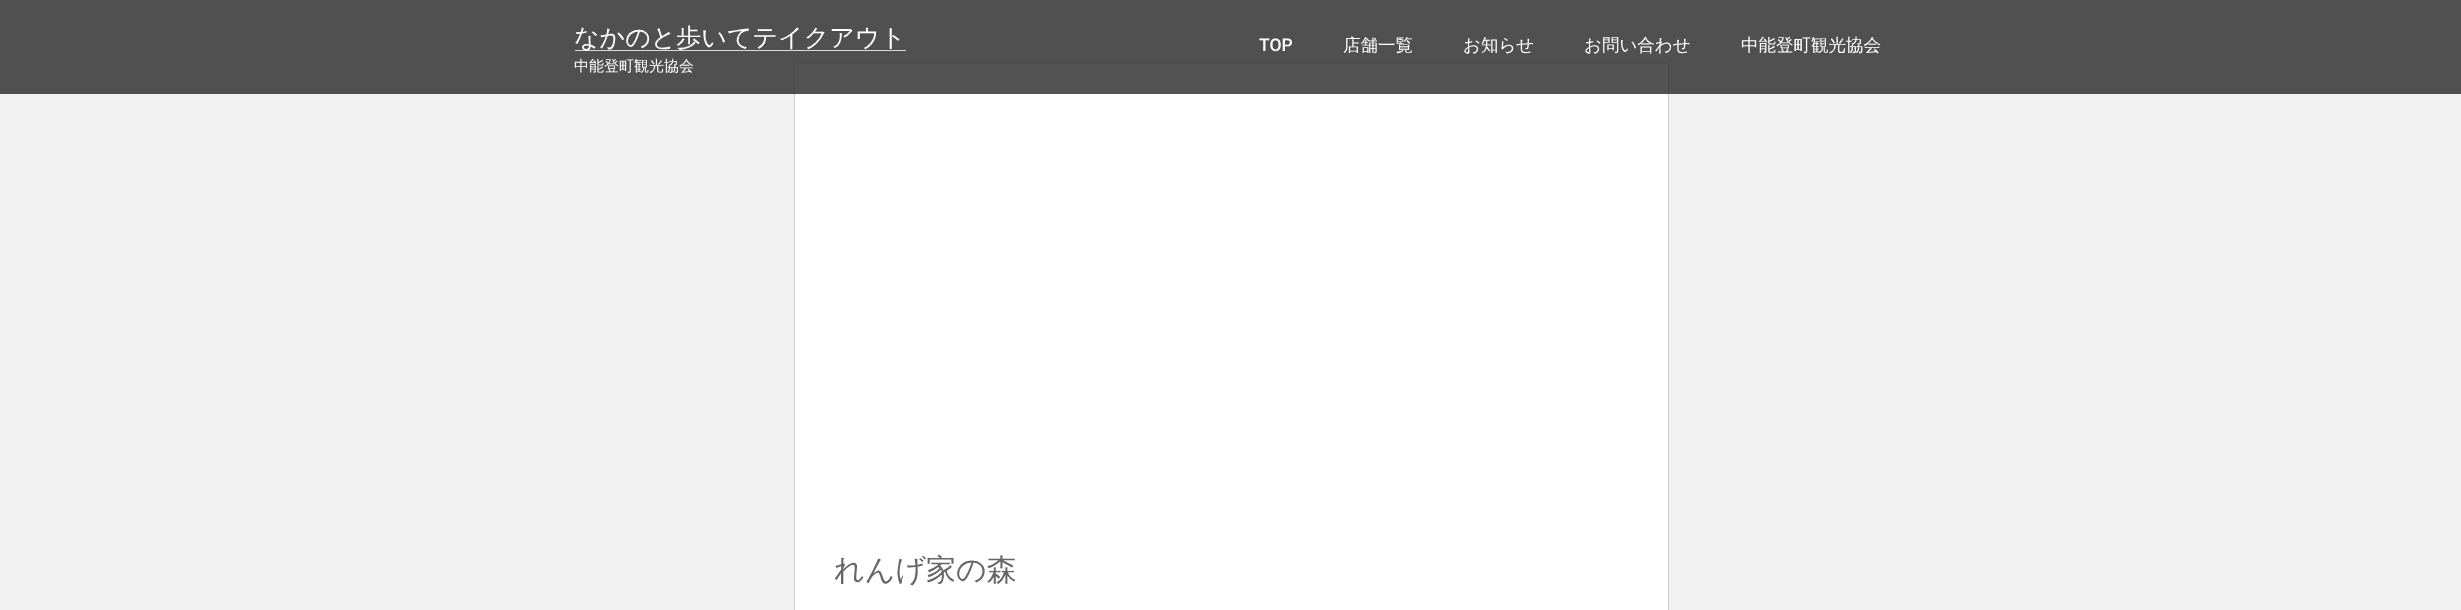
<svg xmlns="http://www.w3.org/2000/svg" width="2461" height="610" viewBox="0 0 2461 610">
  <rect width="100%" height="100%" fill="rgb(241,241,241)"/>
  <rect x="794.5" y="63.5" width="874" height="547" fill="rgb(255,255,255)" stroke="rgb(204,208,212)"/>
  <rect x="0" y="0" width="2461" height="94" fill="rgba(40,40,40,0.8)"/>
  <rect x="575" y="50" width="331" height="1" fill="rgb(218,218,218)"/>
  <text x="574" y="46" font-family="WenQuanYi Zen Hei" font-size="25" font-weight="500" fill="rgb(255,255,255)">なかのと歩いてテイクアウト</text>
  <text x="574" y="71" font-family="WenQuanYi Zen Hei" font-size="15" font-weight="500" fill="rgb(255,255,255)">中能登町観光協会</text>
  <text x="1259" y="51" font-family="Roboto" font-size="17.5" font-weight="500" fill="rgb(255,255,255)">TOP</text>
  <g font-family="WenQuanYi Zen Hei" font-size="17.5" font-weight="500" fill="rgb(255,255,255)">
    <text x="1343" y="51">店舗一覧</text>
    <text x="1463" y="51">お知らせ</text>
    <text x="1584" y="51">お問い合わせ</text>
    <text x="1741" y="51">中能登町観光協会</text>
  </g>
  <text x="834" y="580" font-family="WenQuanYi Zen Hei" font-size="30" font-weight="500" fill="rgb(102,102,102)">れんげ家の森</text>
</svg>
